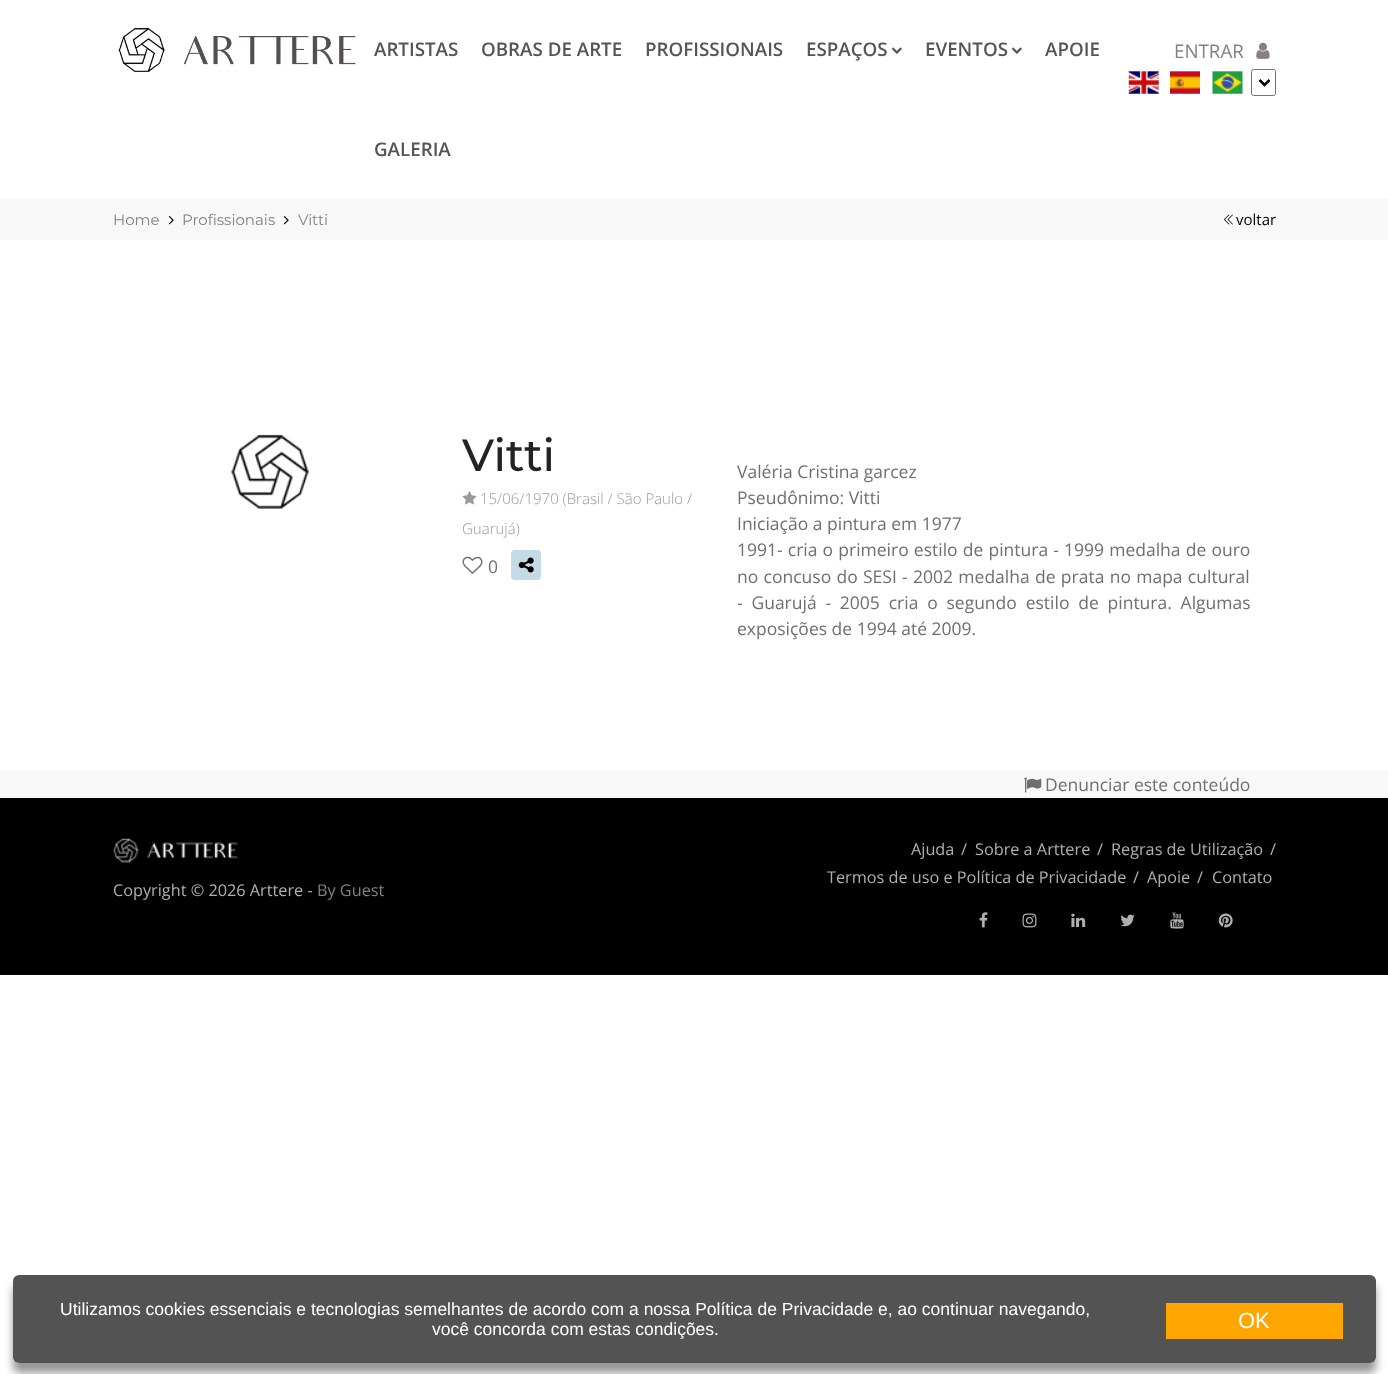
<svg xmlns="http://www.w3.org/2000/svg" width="1388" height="1374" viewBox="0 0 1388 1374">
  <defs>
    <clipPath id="clip1"><path d="M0 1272H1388V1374H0ZM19 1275H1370C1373.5 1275 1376 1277.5 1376 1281V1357C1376 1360.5 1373.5 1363 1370 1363H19C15.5 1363 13 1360.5 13 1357V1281C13 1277.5 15.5 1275 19 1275Z" clip-rule="evenodd"/></clipPath>
  </defs>
  <rect width="100%" height="100%" fill="rgb(255,255,255)"/>
  <rect x="0" y="199" width="1388" height="599" fill="rgb(248,248,248)"/>
  <image x="118" y="27" width="238" height="45" href="pic1.png"/>
  <g font-family="Open Sans" font-size="18.75" font-weight="600" fill="rgb(85,85,85)">
    <text x="374" y="56">ARTISTAS</text>
    <text x="481" y="56">OBRAS DE ARTE</text>
    <text x="645" y="56">PROFISSIONAIS</text>
    <text x="806" y="56">ESPAÇOS</text>
  </g>
  <image x="891" y="47" width="11" height="7" href="pic2.png"/>
  <text x="925" y="56" font-family="Open Sans" font-size="18.75" font-weight="600" fill="rgb(85,85,85)">EVENTOS</text>
  <image x="1011" y="47" width="11" height="7" href="pic2.png"/>
  <g font-family="Open Sans" font-size="18.75" font-weight="600" fill="rgb(85,85,85)">
    <text x="1045" y="56">APOIE</text>
    <text x="374" y="156">GALERIA</text>
  </g>
  <text x="1174" y="58" font-family="Open Sans" font-size="18.75" fill="rgb(136,127,127)">ENTRAR</text>
  <image x="1256" y="42" width="14" height="17" href="pic3.png"/>
  <image x="1128" y="71" width="31" height="23" href="pic4.png"/>
  <image x="1170" y="71" width="30" height="23" href="pic5.png"/>
  <image x="1212" y="71" width="31" height="23" href="pic6.png"/>
  <rect x="1251.5" y="69.5" width="24" height="26" rx="2" fill="none" stroke="rgb(118,118,118)"/>
  <path d="M1259.5 80L1264.5 85L1269.5 80" fill="none" stroke="rgb(0,0,0)" stroke-width="2.5"/>
  <text x="113" y="225" font-family="Montserrat" font-size="15" fill="rgb(136,127,127)">Home</text>
  <image x="168" y="216" width="6" height="9" href="pic7.png"/>
  <text x="182" y="225" font-family="Montserrat" font-size="15" fill="rgb(136,127,127)">Profissionais</text>
  <image x="283" y="216" width="6" height="9" href="pic7.png"/>
  <text x="298" y="225" font-family="Montserrat" font-size="15" fill="rgb(136,127,127)">Vitti</text>
  <image x="1223" y="214" width="10" height="11" href="pic8.png"/>
  <text x="1236" y="225" font-family="Open Sans" font-size="15" fill="rgb(0,0,0)">voltar</text>
  <rect x="0" y="240" width="1388" height="531" fill="rgb(255,255,255)"/>
  <image x="231" y="434" width="78" height="75" href="pic9.png"/>
  <text x="462" y="471" font-family="Montserrat" font-size="45" font-weight="500" fill="rgb(35,35,35)">Vitti</text>
  <image x="462" y="491" width="15" height="14" href="pic10.png"/>
  <g font-family="Open Sans" font-size="15" font-weight="300" fill="rgb(154,154,154)">
    <text x="480" y="504">15/06/1970 (Brasil / São Paulo /</text>
    <text x="462" y="534">Guarujá)</text>
  </g>
  <image x="462" y="556" width="21" height="18" href="pic11.png"/>
  <text x="488" y="573" font-family="Open Sans" font-size="17.5" fill="rgb(111,111,111)">0</text>
  <rect x="511" y="550" width="30" height="30" rx="4" fill="rgb(194,219,230)"/>
  <image x="518" y="557" width="16" height="16" href="pic12.png"/>
  <g font-family="Open Sans" font-size="17.5" fill="rgb(111,111,111)">
    <text>
      <tspan x="737" y="478">Valéria Cristina garcez</tspan>
      <tspan x="737" y="504">Pseudônimo: Vitti</tspan>
      <tspan x="737" y="530">Iniciação a pintura em 1977</tspan>
      <tspan x="737" y="556" word-spacing="0.6">1991- cria o primeiro estilo de pintura - 1999 medalha de ouro</tspan>
      <tspan x="737" y="583" word-spacing="0.75">no concuso do SESI - 2002 medalha de prata no mapa cultural</tspan>
      <tspan x="737" y="609" word-spacing="4.25">- Guarujá - 2005 cria o segundo estilo de pintura. Algumas</tspan>
      <tspan x="737" y="635">exposições de 1994 até 2009.</tspan>
    </text>
  </g>
  <image x="1024" y="777" width="18" height="16" href="pic13.png"/>
  <text x="1045" y="791" font-family="Open Sans" font-size="17.5" fill="rgb(111,111,111)">Denunciar este conteúdo</text>
  <rect x="0" y="798" width="1388" height="177" fill="rgb(0,0,0)"/>
  <g font-family="Open Sans" font-size="16.25" fill="rgb(176,176,176)">
    <text x="911" y="855">Ajuda</text>
    <text x="961" y="855">/</text>
    <text x="975" y="855">Sobre a Arttere</text>
    <text x="1097" y="855">/</text>
    <text x="1111" y="855">Regras de Utilização</text>
    <text x="1270" y="855">/</text>
    <text x="827" y="883">Termos de uso e Política de Privacidade</text>
    <text x="1133" y="883">/</text>
    <text x="1147" y="883">Apoie</text>
    <text x="1197" y="883">/</text>
    <text x="1212" y="883">Contato</text>
  </g>
  <image x="979" y="912" width="9" height="16" href="pic14.png"/>
  <image x="1022" y="913" width="15" height="15" href="pic15.png"/>
  <image x="1071" y="913" width="15" height="14" href="pic16.png"/>
  <image x="1120" y="914" width="15" height="13" href="pic17.png"/>
  <image x="1170" y="912" width="14" height="17" href="pic18.png"/>
  <image x="1218" y="913" width="15" height="15" href="pic19.png"/>
  <image x="113" y="838" width="125" height="25" href="pic20.png"/>
  <text x="113" y="896" font-family="Open Sans" font-size="16.25" fill="rgb(176,176,176)">Copyright © 2026 Arttere -</text>
  <text x="317" y="896" font-family="Open Sans" font-size="16.25" fill="rgb(136,127,127)">By Guest</text>
  <g clip-path="url(#clip1)">
    <rect x="13" y="1285" width="1363" height="88" rx="6" fill="rgba(0,0,0,0.41)" filter="blur(4px)"/>
  </g>
  <rect x="13" y="1275" width="1363" height="88" rx="6" fill="rgba(64,64,64,0.9)"/>
  <g font-family="Liberation Sans" font-size="17.5" fill="rgb(255,255,255)">
    <text x="60" y="1315">Utilizamos cookies essenciais e tecnologias semelhantes de acordo com a nossa Política de Privacidade e, ao continuar navegando,</text>
    <text x="432" y="1335">você concorda com estas condições.</text>
  </g>
  <rect x="1166" y="1303" width="177" height="36" fill="rgb(255,165,0)"/>
  <text x="1238" y="1328" font-family="Liberation Sans" font-size="22" fill="rgb(255,255,255)">OK</text>
</svg>
